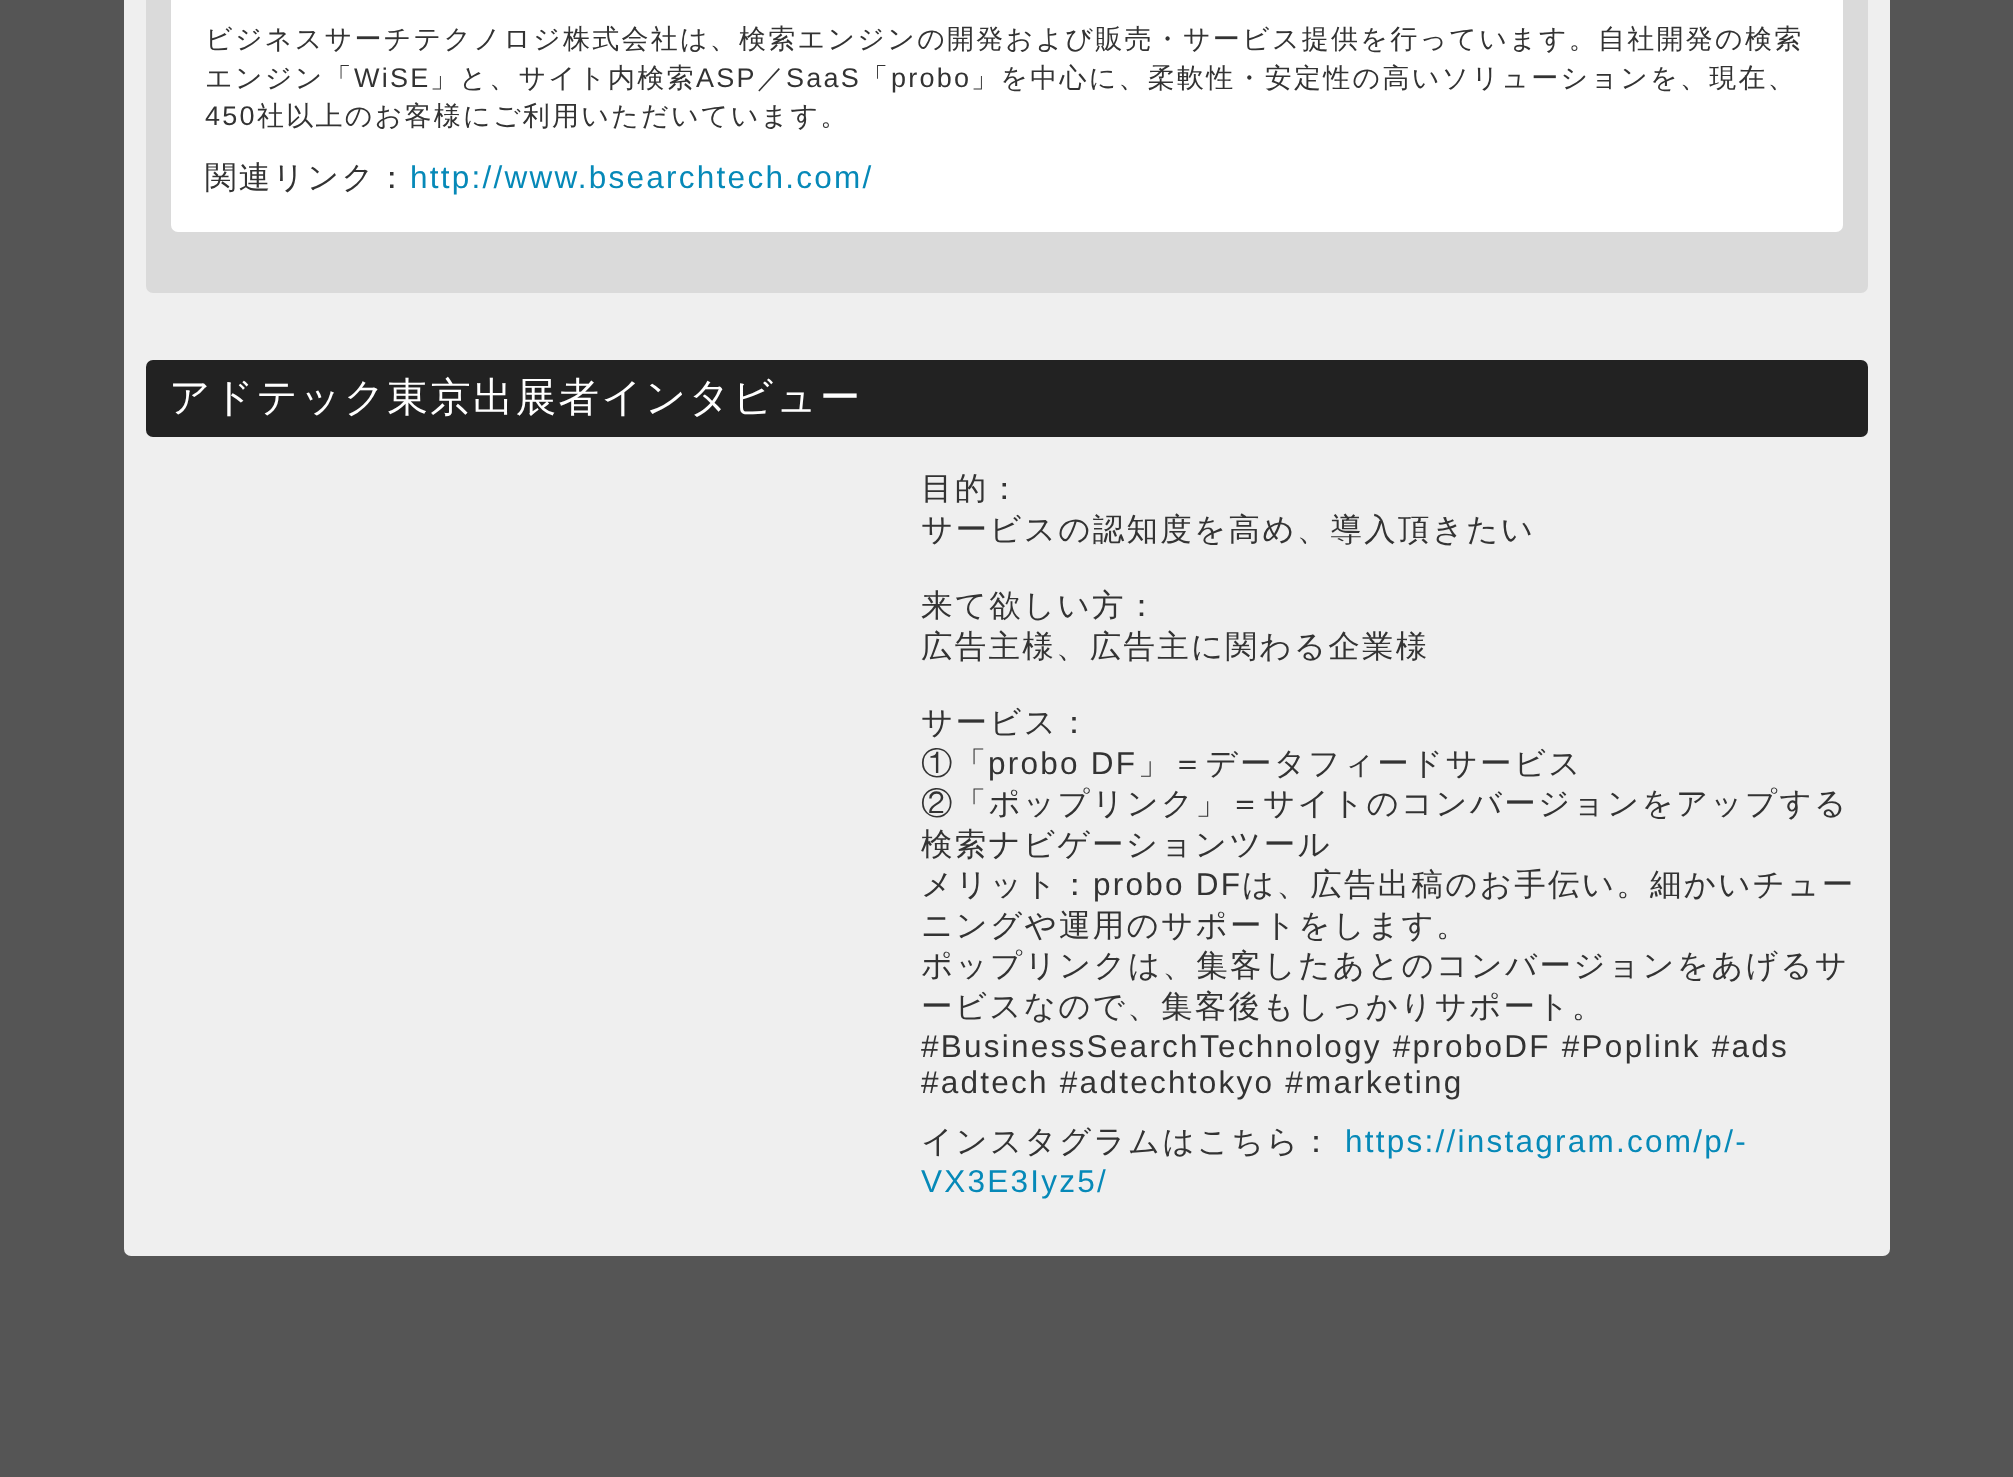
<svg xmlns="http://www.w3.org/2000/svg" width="2013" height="1477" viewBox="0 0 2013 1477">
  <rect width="100%" height="100%" fill="rgb(85,85,85)"/>
  <rect x="124" y="-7" width="1766" height="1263" rx="7" fill="rgb(239,239,239)"/>
  <rect x="146" y="-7" width="1722" height="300" rx="7" fill="rgb(218,218,218)"/>
  <rect x="171" y="-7" width="1672" height="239" rx="7" fill="rgb(255,255,255)"/>
  <g font-family="WenQuanYi Zen Hei" font-size="27" font-weight="500" letter-spacing="2.25" fill="rgb(51,51,51)">
    <text>
      <tspan x="205" y="48">ビジネスサーチテクノロジ株式会社は、検索エンジンの開発および販売・サービス提供を行っています。自社開発の検索</tspan>
      <tspan x="205" y="87">エンジン「</tspan>
    </text>
  </g>
  <text x="354" y="87" font-family="Liberation Sans" font-size="27" letter-spacing="2.25" fill="rgb(51,51,51)">WiSE</text>
  <text x="430" y="87" font-family="WenQuanYi Zen Hei" font-size="27" font-weight="500" letter-spacing="2.25" fill="rgb(51,51,51)">」と、サイト内検索</text>
  <text x="696" y="87" font-family="Liberation Sans" font-size="27" letter-spacing="2.25" fill="rgb(51,51,51)">ASP</text>
  <text x="757" y="87" font-family="WenQuanYi Zen Hei" font-size="27" font-weight="500" letter-spacing="2.25" fill="rgb(51,51,51)">／</text>
  <text x="786" y="87" font-family="Liberation Sans" font-size="27" letter-spacing="2.25" fill="rgb(51,51,51)">SaaS</text>
  <text x="861" y="87" font-family="WenQuanYi Zen Hei" font-size="27" font-weight="500" letter-spacing="2.25" fill="rgb(51,51,51)">「</text>
  <text x="891" y="87" font-family="Liberation Sans" font-size="27" letter-spacing="2.25" fill="rgb(51,51,51)">probo</text>
  <text x="971" y="87" font-family="WenQuanYi Zen Hei" font-size="27" font-weight="500" letter-spacing="2.25" fill="rgb(51,51,51)">」を中心に、柔軟性・安定性の高いソリューションを、現在、</text>
  <text x="205" y="125" font-family="Liberation Sans" font-size="27" letter-spacing="2.25" fill="rgb(51,51,51)">450</text>
  <text x="257" y="125" font-family="WenQuanYi Zen Hei" font-size="27" font-weight="500" letter-spacing="2.25" fill="rgb(51,51,51)">社以上のお客様にご利用いただいています。</text>
  <text x="205" y="188" font-family="WenQuanYi Zen Hei" font-size="31.5" font-weight="500" letter-spacing="2.25" fill="rgb(51,51,51)">関連リンク：</text>
  <text x="410" y="188" font-family="Liberation Sans" font-size="31.5" letter-spacing="2.25" fill="rgb(6,137,184)">http://www.bsearchtech.com/</text>
  <rect x="146" y="360" width="1722" height="77" rx="7" fill="rgb(34,34,34)"/>
  <text x="169" y="411" font-family="WenQuanYi Zen Hei" font-size="40.5" font-weight="500" letter-spacing="2.25" fill="rgb(255,255,255)">アドテック東京出展者インタビュー</text>
  <g font-family="WenQuanYi Zen Hei" font-size="31.5" font-weight="500" letter-spacing="2.25" fill="rgb(51,51,51)">
    <text>
      <tspan x="921" y="499">目的：</tspan>
      <tspan x="921" y="540">サービスの認知度を高め、導入頂きたい</tspan>
    </text>
    <text>
      <tspan x="921" y="616">来て欲しい方：</tspan>
      <tspan x="921" y="657">広告主様、広告主に関わる企業様</tspan>
    </text>
    <text>
      <tspan x="921" y="733">サービス：</tspan>
      <tspan x="921" y="774">①「</tspan>
    </text>
  </g>
  <text x="988" y="774" font-family="Liberation Sans" font-size="31.5" letter-spacing="2.25" fill="rgb(51,51,51)">probo DF</text>
  <g font-family="WenQuanYi Zen Hei" font-size="31.5" font-weight="500" letter-spacing="2.25" fill="rgb(51,51,51)">
    <text x="1138" y="774">」＝データフィードサービス</text>
    <text>
      <tspan x="921" y="814">②「ポップリンク」＝サイトのコンバージョンをアップする</tspan>
      <tspan x="921" y="855">検索ナビゲーションツール</tspan>
      <tspan x="921" y="895">メリット：</tspan>
    </text>
  </g>
  <text x="1093" y="895" font-family="Liberation Sans" font-size="31.5" letter-spacing="2.25" fill="rgb(51,51,51)">probo DF</text>
  <g font-family="WenQuanYi Zen Hei" font-size="31.5" font-weight="500" letter-spacing="2.25" fill="rgb(51,51,51)">
    <text x="1242" y="895">は、広告出稿のお手伝い。細かいチュー</text>
    <text>
      <tspan x="921" y="936">ニングや運用のサポートをします。</tspan>
      <tspan x="921" y="976">ポップリンクは、集客したあとのコンバージョンをあげるサ</tspan>
      <tspan x="921" y="1017">ービスなので、集客後もしっかりサポート。</tspan>
    </text>
  </g>
  <g font-family="Liberation Sans" font-size="31.5" letter-spacing="2.25" fill="rgb(51,51,51)">
    <text>
      <tspan x="921" y="1057">#BusinessSearchTechnology #proboDF #Poplink #ads</tspan>
      <tspan x="921" y="1093">#adtech #adtechtokyo #marketing</tspan>
    </text>
  </g>
  <text x="921" y="1152" font-family="WenQuanYi Zen Hei" font-size="31.5" font-weight="500" letter-spacing="2.25" fill="rgb(51,51,51)">インスタグラムはこちら：</text>
  <g font-family="Liberation Sans" font-size="31.5" letter-spacing="2.25" fill="rgb(6,137,184)">
    <text x="1345" y="1152">https://instagram.com/p/-</text>
    <text x="921" y="1192">VX3E3Iyz5/</text>
  </g>
</svg>
